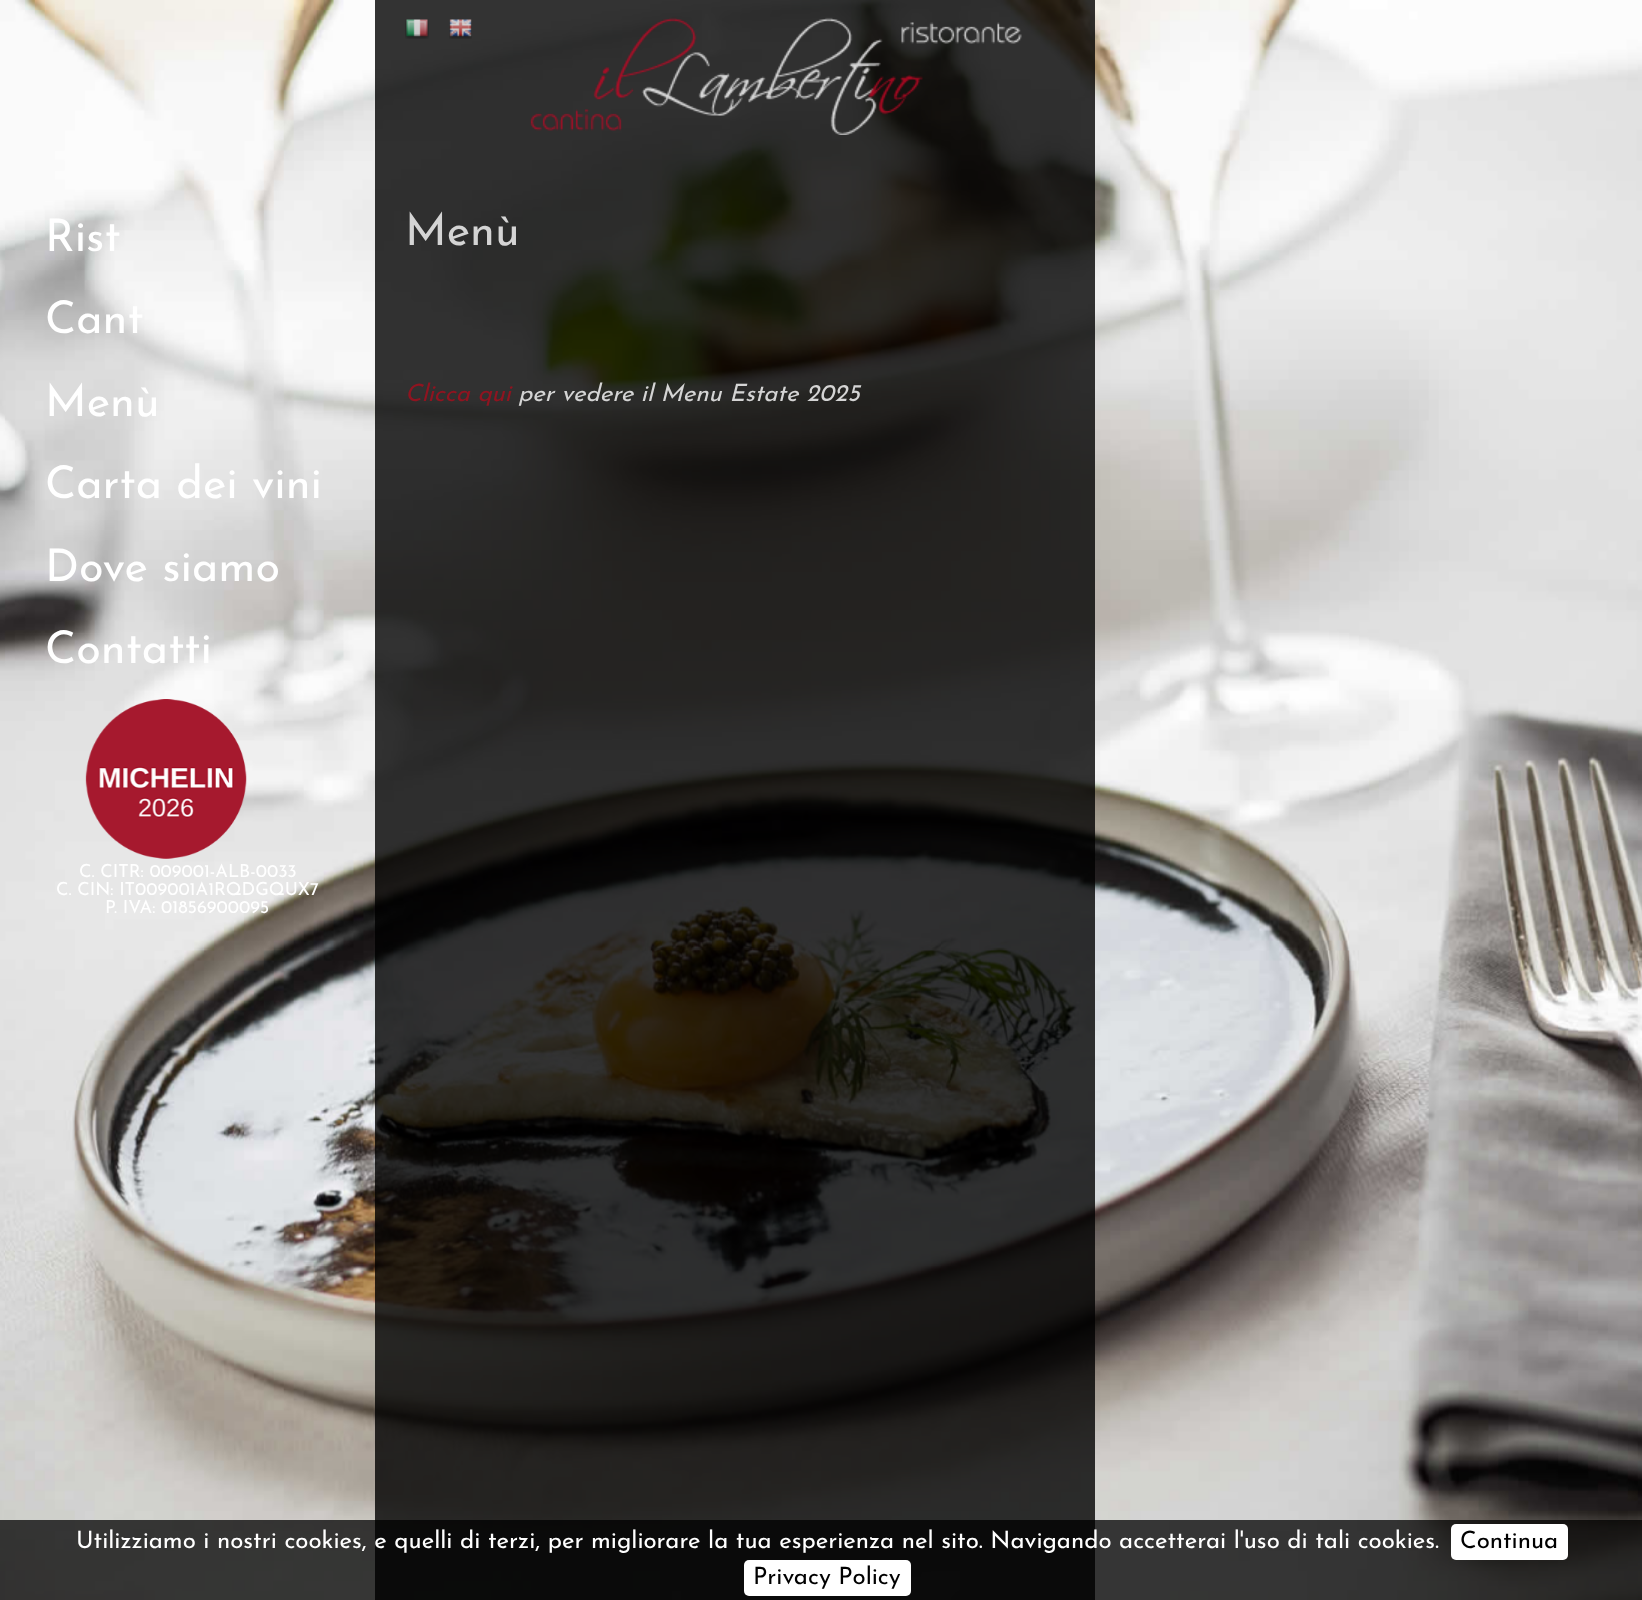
<svg xmlns="http://www.w3.org/2000/svg" width="1642" height="1600" viewBox="0 0 1642 1600">
  <rect width="100%" height="100%" fill="rgb(255,255,255)"/>
  <image x="0" y="0" width="1642" height="1600" href="pic1.png"/>
  <g font-family="Josefin Sans" font-size="45" fill="rgb(255,255,255)">
    <text>
      <tspan x="45" y="251">Rist</tspan>
      <tspan x="45" y="333">Cant</tspan>
      <tspan x="45" y="416">Menù</tspan>
      <tspan x="45" y="498">Carta dei vini</tspan>
      <tspan x="45" y="581">Dove siamo</tspan>
      <tspan x="45" y="663">Contatti</tspan>
    </text>
  </g>
  <image x="85" y="699" width="162" height="160" href="pic2.png"/>
  <g font-family="Josefin Sans" font-size="18" fill="rgb(255,255,255)">
    <text x="79" y="877">C. CITR: 009001-ALB-0033</text>
    <text x="56" y="895">C. CIN: IT009001A1RQDGQUX7</text>
    <text x="105" y="913">P. IVA: 01856900095</text>
  </g>
  <rect x="375" y="0" width="720" height="1600" fill="rgba(0,0,0,0.8)"/>
  <image x="405" y="19" width="24" height="20" href="pic3.png"/>
  <image x="449" y="19" width="23" height="20" href="pic4.png"/>
  <image x="530" y="17" width="492" height="118" href="pic5.png"/>
  <text x="405" y="245" font-family="Josefin Sans" font-size="45" fill="rgb(212,212,212)">Menù</text>
  <text x="405" y="401" font-family="Josefin Sans" font-size="24" font-style="italic" fill="rgb(143,20,32)">Clicca qui</text>
  <text x="518" y="401" font-family="Josefin Sans" font-size="24" font-style="italic" fill="rgb(212,212,212)">per vedere il Menu Estate 2025</text>
  <rect x="0" y="1520" width="1642" height="80" fill="rgba(0,0,0,0.75)"/>
  <text x="76" y="1548" font-family="Josefin Sans" font-size="24" fill="rgb(255,255,255)">Utilizziamo i nostri cookies, e quelli di terzi, per migliorare la tua esperienza nel sito. Navigando accetterai l'uso di tali cookies.</text>
  <rect x="1451" y="1524" width="117" height="36" rx="5" fill="rgb(255,255,255)"/>
  <text x="1460" y="1548" font-family="Josefin Sans" font-size="24" fill="rgb(0,0,0)">Continua</text>
  <rect x="744" y="1560" width="167" height="36" rx="5" fill="rgb(255,255,255)"/>
  <text x="753" y="1584" font-family="Josefin Sans" font-size="24" fill="rgb(0,0,0)">Privacy Policy</text>
</svg>
